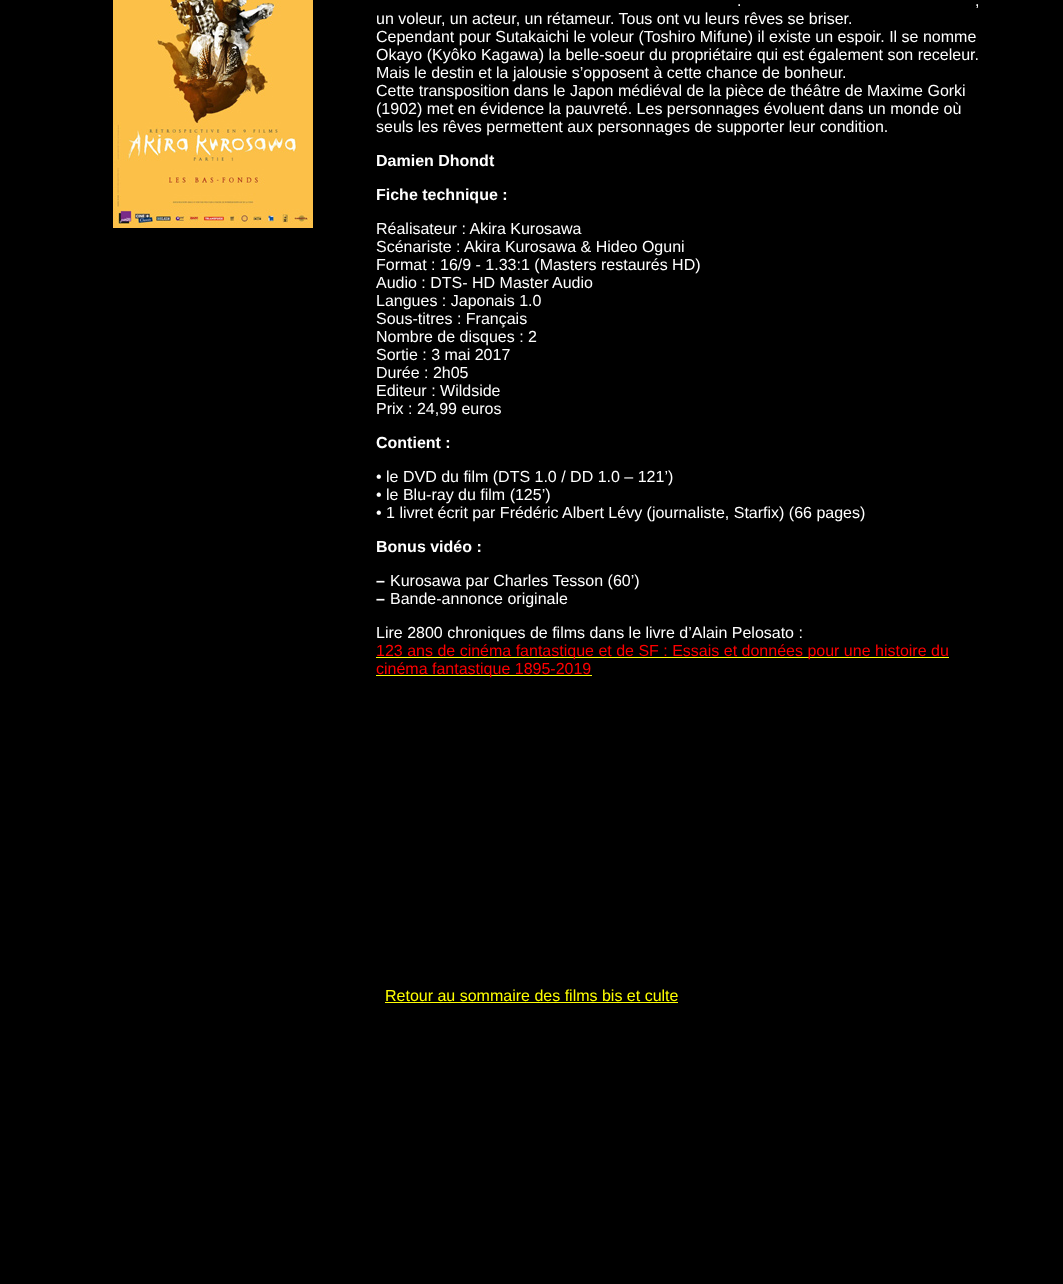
<svg xmlns="http://www.w3.org/2000/svg" width="1063" height="1284" viewBox="0 0 1063 1284">
  <rect width="100%" height="100%" fill="rgb(0,0,0)"/>
  <image x="113" y="0" width="200" height="228" href="pic1.png"/>
  <g font-family="Liberation Sans" font-size="16" fill="rgb(255,255,255)">
    <text x="737" y="6">.</text>
    <text x="975" y="6">,</text>
    <text>
      <tspan x="376" y="24">un voleur, un acteur, un rétameur. Tous ont vu leurs rêves se briser.</tspan>
      <tspan x="376" y="42">Cependant pour Sutakaichi le voleur (Toshiro Mifune) il existe un espoir. Il se nomme</tspan>
      <tspan x="376" y="60">Okayo (Kyôko Kagawa) la belle-soeur du propriétaire qui est également son receleur.</tspan>
      <tspan x="376" y="78">Mais le destin et la jalousie s’opposent à cette chance de bonheur.</tspan>
      <tspan x="376" y="96">Cette transposition dans le Japon médiéval de la pièce de théâtre de Maxime Gorki</tspan>
      <tspan x="376" y="114">(1902) met en évidence la pauvreté. Les personnages évoluent dans un monde où</tspan>
      <tspan x="376" y="132">seuls les rêves permettent aux personnages de supporter leur condition.</tspan>
    </text>
  </g>
  <g font-family="Liberation Sans" font-size="16" font-weight="bold" fill="rgb(255,255,255)">
    <text x="376" y="166">Damien Dhondt</text>
    <text x="376" y="200">Fiche technique :</text>
  </g>
  <g font-family="Liberation Sans" font-size="16" fill="rgb(255,255,255)">
    <text>
      <tspan x="376" y="234">Réalisateur : Akira Kurosawa</tspan>
      <tspan x="376" y="252">Scénariste : Akira Kurosawa &amp; Hideo Oguni</tspan>
      <tspan x="376" y="270">Format : 16/9 - 1.33:1 (Masters restaurés HD)</tspan>
      <tspan x="376" y="288">Audio : DTS- HD Master Audio</tspan>
      <tspan x="376" y="306">Langues : Japonais 1.0</tspan>
      <tspan x="376" y="324">Sous-titres : Français</tspan>
      <tspan x="376" y="342">Nombre de disques : 2</tspan>
      <tspan x="376" y="360">Sortie : 3 mai 2017</tspan>
      <tspan x="376" y="378">Durée : 2h05</tspan>
      <tspan x="376" y="396">Editeur : Wildside</tspan>
      <tspan x="376" y="414">Prix : 24,99 euros</tspan>
    </text>
  </g>
  <text x="376" y="448" font-family="Liberation Sans" font-size="16" font-weight="bold" fill="rgb(255,255,255)">Contient :</text>
  <g font-family="Liberation Sans" font-size="16" fill="rgb(255,255,255)">
    <text>
      <tspan x="376" y="482">• le DVD du film (DTS 1.0 / DD 1.0 – 121’)</tspan>
      <tspan x="376" y="500">• le Blu-ray du film (125’)</tspan>
      <tspan x="376" y="518">• 1 livret écrit par Frédéric Albert Lévy (journaliste, Starfix) (66 pages)</tspan>
    </text>
  </g>
  <g font-family="Liberation Sans" font-size="16" font-weight="bold" fill="rgb(255,255,255)">
    <text x="376" y="552">Bonus vidéo :</text>
    <text x="376" y="586">–</text>
  </g>
  <text x="390" y="586" font-family="Liberation Sans" font-size="16" fill="rgb(255,255,255)">Kurosawa par Charles Tesson (60’)</text>
  <text x="376" y="604" font-family="Liberation Sans" font-size="16" font-weight="bold" fill="rgb(255,255,255)">–</text>
  <g font-family="Liberation Sans" font-size="16" fill="rgb(255,255,255)">
    <text x="390" y="604">Bande-annonce originale</text>
    <text x="376" y="638">Lire 2800 chroniques de films dans le livre d’Alain Pelosato :</text>
  </g>
  <rect x="376" y="657" width="573" height="1" fill="rgb(255,255,0)"/>
  <text x="376" y="656" font-family="Liberation Sans" font-size="16" fill="rgb(255,0,0)">123 ans de cinéma fantastique et de SF : Essais et données pour une histoire du</text>
  <rect x="376" y="675" width="216" height="1" fill="rgb(255,255,0)"/>
  <text x="376" y="674" font-family="Liberation Sans" font-size="16" fill="rgb(255,0,0)">cinéma fantastique 1895-2019</text>
  <text x="385" y="1001" font-family="Liberation Sans" font-size="16" fill="rgb(255,255,0)">Retour au sommaire des films bis et culte</text>
  <rect x="385" y="1002" width="293" height="1" fill="rgb(255,255,0)"/>
</svg>
